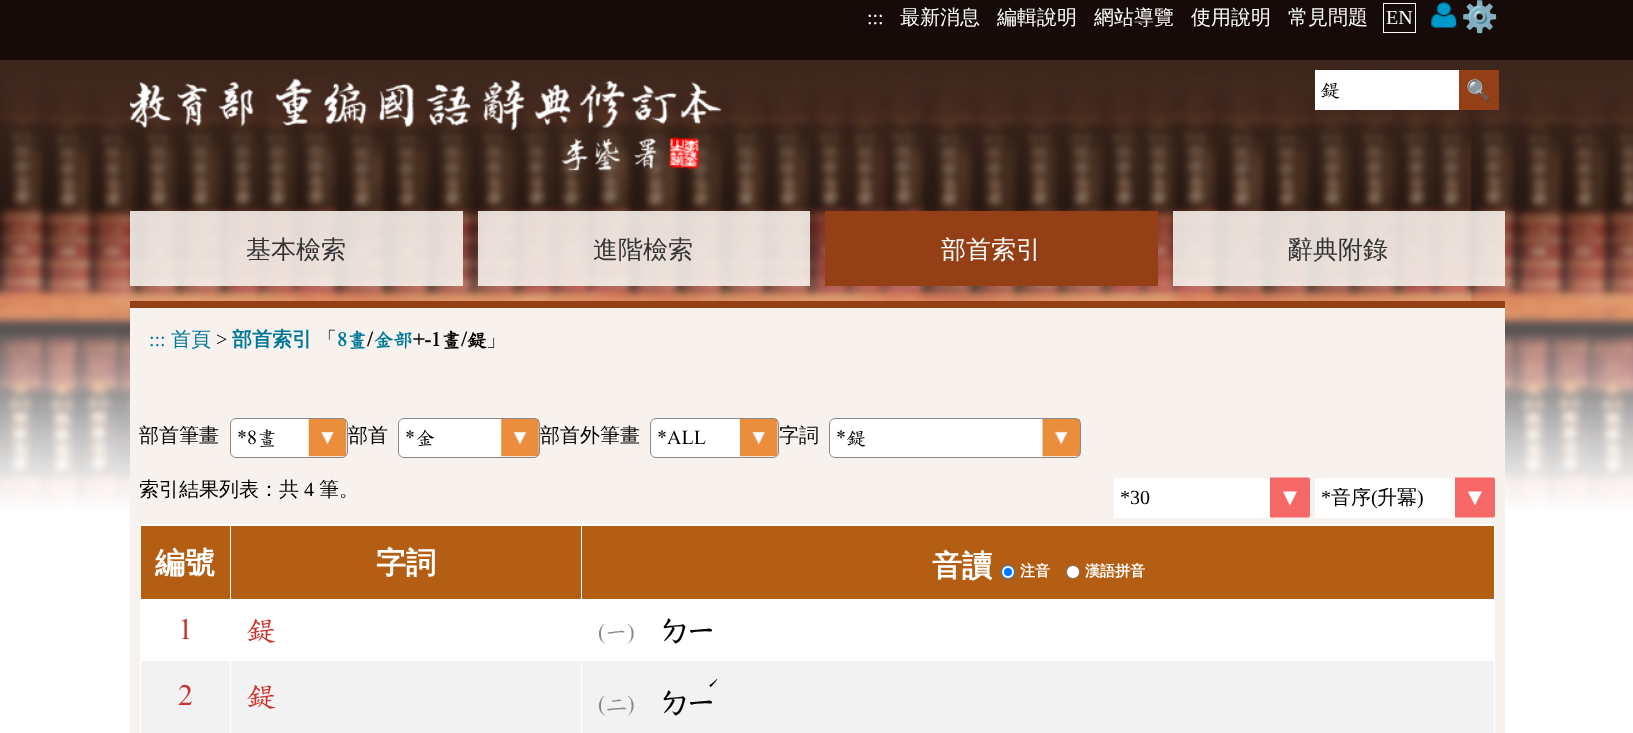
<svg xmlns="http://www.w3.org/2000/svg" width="1633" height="733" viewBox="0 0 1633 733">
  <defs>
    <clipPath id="clip1"><rect x="1321" y="488" width="104" height="21"/></clipPath>
  </defs>
  <rect width="100%" height="100%" fill="rgb(255,255,255)"/>
  <rect x="0" y="0" width="1633" height="60" fill="rgb(22,11,9)"/>
  <text x="867" y="24" font-family="Liberation Serif" font-size="20" fill="rgb(255,255,255)">:::</text>
  <g font-family="WenQuanYi Zen Hei" font-size="20" font-weight="500" fill="rgb(255,255,255)">
    <text x="900" y="24">最新消息</text>
    <text x="997" y="24">編輯說明</text>
    <text x="1094" y="24">網站導覽</text>
    <text x="1191" y="24">使用說明</text>
    <text x="1288" y="24">常見問題</text>
  </g>
  <rect x="1383.5" y="3.5" width="32" height="29" fill="none" stroke="rgb(255,255,255)"/>
  <text x="1386" y="24" font-family="Liberation Serif" font-size="20" fill="rgb(255,255,255)">EN</text>
  <image x="1431" y="2" width="26" height="26" href="pic1.png"/>
  <text x="1461" y="27" font-family="Noto Color Emoji" font-size="30" fill="rgb(255,255,255)">⚙️</text>
  <image x="0" y="60" width="1633" height="450" href="pic2.png"/>
  <image x="130" y="78" width="592" height="93" href="pic3.png"/>
  <rect x="1315" y="70" width="144" height="40" fill="rgb(255,255,255)"/>
  <text x="1320" y="96" font-family="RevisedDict" font-size="20" fill="rgb(0,0,0)">鍉</text>
  <rect x="1459" y="70" width="40" height="40" fill="rgb(148,63,22)"/>
  <text x="1466" y="97" font-family="Noto Color Emoji" font-size="20" fill="rgb(255,255,255)">🔍</text>
  <rect x="130" y="211" width="333" height="75" fill="rgba(247,242,238,0.88)"/>
  <text x="246" y="258" font-family="WenQuanYi Zen Hei" font-size="25" font-weight="500" fill="rgb(51,51,51)">基本檢索</text>
  <rect x="478" y="211" width="332" height="75" fill="rgba(247,242,238,0.88)"/>
  <text x="593" y="258" font-family="WenQuanYi Zen Hei" font-size="25" font-weight="500" fill="rgb(51,51,51)">進階檢索</text>
  <rect x="825" y="211" width="333" height="75" fill="rgb(148,63,22)"/>
  <text x="941" y="258" font-family="WenQuanYi Zen Hei" font-size="25" font-weight="500" fill="rgb(255,255,255)">部首索引</text>
  <rect x="1173" y="211" width="332" height="75" fill="rgba(247,242,238,0.88)"/>
  <text x="1288" y="258" font-family="WenQuanYi Zen Hei" font-size="25" font-weight="500" fill="rgb(51,51,51)">辭典附錄</text>
  <rect x="130" y="308" width="1375" height="425" fill="rgb(247,242,238)"/>
  <rect x="130" y="301" width="1375" height="7" fill="rgb(148,63,22)"/>
  <text x="149" y="346" font-family="Liberation Serif" font-size="20" fill="rgb(0,119,153)">:::</text>
  <text x="171" y="346" font-family="WenQuanYi Zen Hei" font-size="20" font-weight="500" fill="rgb(0,119,153)">首頁</text>
  <text x="216" y="346" font-family="Liberation Serif" font-size="20" fill="rgb(0,0,0)">&gt;</text>
  <text x="232" y="346" font-family="WenQuanYi Zen Hei" font-size="20" font-weight="bold" fill="rgb(0,119,153)">部首索引</text>
  <text x="317" y="346" font-family="WenQuanYi Zen Hei" font-size="20" font-weight="500" fill="rgb(0,0,0)">「</text>
  <text x="337" y="346" font-family="RevisedDict" font-size="20" font-weight="bold" fill="rgb(0,119,153)">8畫</text>
  <text x="367" y="346" font-family="RevisedDict" font-size="20" font-weight="bold" fill="rgb(0,0,0)">/</text>
  <text x="373" y="346" font-family="RevisedDict" font-size="20" font-weight="bold" fill="rgb(0,119,153)">金部</text>
  <text x="413" y="346" font-family="RevisedDict" font-size="20" font-weight="bold" fill="rgb(0,0,0)">+-1畫/鍉</text>
  <g font-family="WenQuanYi Zen Hei" font-size="20" font-weight="500" fill="rgb(0,0,0)">
    <text x="486" y="346">」</text>
    <text x="139" y="442">部首筆畫</text>
  </g>
  <rect x="230" y="418" width="118" height="40" rx="6" fill="rgb(255,255,255)"/>
  <image x="308" y="418" width="39" height="39" href="pic4.png"/>
  <rect x="230.5" y="418.5" width="117" height="39" rx="5.5" fill="none" stroke="rgb(136,136,136)"/>
  <text x="237" y="444" font-family="RevisedDict" font-size="20" fill="rgb(0,0,0)">*8畫</text>
  <text x="348" y="442" font-family="WenQuanYi Zen Hei" font-size="20" font-weight="500" fill="rgb(0,0,0)">部首</text>
  <rect x="398" y="418" width="142" height="40" rx="6" fill="rgb(255,255,255)"/>
  <image x="501" y="418" width="38" height="39" href="pic5.png"/>
  <rect x="398.5" y="418.5" width="141" height="39" rx="5.5" fill="none" stroke="rgb(136,136,136)"/>
  <text x="405" y="444" font-family="RevisedDict" font-size="20" fill="rgb(0,0,0)">*金</text>
  <text x="540" y="442" font-family="WenQuanYi Zen Hei" font-size="20" font-weight="500" fill="rgb(0,0,0)">部首外筆畫</text>
  <rect x="650" y="418" width="129" height="40" rx="6" fill="rgb(255,255,255)"/>
  <image x="740" y="418" width="38" height="39" href="pic6.png"/>
  <rect x="650.5" y="418.5" width="128" height="39" rx="5.5" fill="none" stroke="rgb(136,136,136)"/>
  <text x="657" y="444" font-family="RevisedDict" font-size="20" fill="rgb(0,0,0)">*ALL</text>
  <text x="779" y="442" font-family="WenQuanYi Zen Hei" font-size="20" font-weight="500" fill="rgb(0,0,0)">字詞</text>
  <rect x="829" y="418" width="252" height="40" rx="6" fill="rgb(255,255,255)"/>
  <image x="1042" y="418" width="38" height="39" href="pic7.png"/>
  <rect x="829.5" y="418.5" width="251" height="39" rx="5.5" fill="none" stroke="rgb(136,136,136)"/>
  <text x="836" y="444" font-family="RevisedDict" font-size="20" fill="rgb(0,0,0)">*鍉</text>
  <text x="139" y="496" font-family="WenQuanYi Zen Hei" font-size="20" font-weight="500" fill="rgb(0,0,0)">索引結果列表：共</text>
  <text x="304" y="496" font-family="Liberation Serif" font-size="20" fill="rgb(0,0,0)">4</text>
  <text x="319" y="496" font-family="WenQuanYi Zen Hei" font-size="20" font-weight="500" fill="rgb(0,0,0)">筆。</text>
  <rect x="1114" y="478" width="196" height="40" fill="rgb(255,255,255)"/>
  <image x="1270" y="477" width="40" height="41" href="pic8.png"/>
  <text x="1120" y="504" font-family="Liberation Serif" font-size="20" fill="rgb(0,0,0)">*30</text>
  <rect x="1315" y="478" width="180" height="40" fill="rgb(255,255,255)"/>
  <image x="1455" y="477" width="40" height="41" href="pic8.png"/>
  <text x="1321" y="504" font-family="Liberation Serif" font-size="20" fill="rgb(0,0,0)">*</text>
  <g clip-path="url(#clip1)">
    <text x="1331" y="504" font-family="WenQuanYi Zen Hei" font-size="20" font-weight="500" fill="rgb(0,0,0)">音序</text>
  </g>
  <text x="1371" y="504" font-family="Liberation Serif" font-size="20" fill="rgb(0,0,0)">(</text>
  <g clip-path="url(#clip1)">
    <text x="1377" y="504" font-family="WenQuanYi Zen Hei" font-size="20" font-weight="500" fill="rgb(0,0,0)">升冪</text>
  </g>
  <text x="1417" y="504" font-family="Liberation Serif" font-size="20" fill="rgb(0,0,0)">)</text>
  <rect x="140" y="524" width="1355" height="1" fill="rgb(255,255,255)"/>
  <rect x="141" y="526" width="89" height="73" fill="rgb(180,94,19)"/>
  <rect x="581" y="525" width="914" height="1" fill="rgb(255,255,255)"/>
  <rect x="231" y="526" width="1263" height="73" fill="rgb(180,94,19)"/>
  <rect x="140" y="599" width="1355" height="1" fill="rgb(255,255,255)"/>
  <rect x="581" y="525" width="1" height="75" fill="rgb(255,255,255)"/>
  <rect x="230" y="525" width="353" height="1" fill="rgb(255,255,255)"/>
  <rect x="230" y="525" width="1" height="75" fill="rgb(255,255,255)"/>
  <rect x="140" y="525" width="91" height="1" fill="rgb(255,255,255)"/>
  <rect x="140" y="525" width="1" height="75" fill="rgb(255,255,255)"/>
  <g font-family="WenQuanYi Zen Hei" font-size="30" font-weight="bold" fill="rgb(255,255,255)">
    <text x="155" y="573">編號</text>
    <text x="376" y="573">字詞</text>
  </g>
  <rect x="1494" y="660" width="1" height="73" fill="rgb(255,255,255)"/>
  <rect x="1494" y="599" width="1" height="62" fill="rgb(255,255,255)"/>
  <rect x="1494" y="525" width="1" height="75" fill="rgb(255,255,255)"/>
  <text x="932" y="576" font-family="WenQuanYi Zen Hei" font-size="30" font-weight="bold" fill="rgb(255,255,255)">音讀</text>
  <circle cx="1008" cy="572" r="6.5" fill="rgb(255,255,255)" stroke="rgb(0,117,255)"/>
  <circle cx="1008" cy="572" r="4" fill="rgb(0,117,255)"/>
  <text x="1020" y="576" font-family="WenQuanYi Zen Hei" font-size="15" font-weight="bold" fill="rgb(255,255,255)">注音</text>
  <circle cx="1073" cy="572" r="6.5" fill="rgb(255,255,255)" stroke="rgb(118,118,118)"/>
  <text x="1085" y="576" font-family="WenQuanYi Zen Hei" font-size="15" font-weight="bold" fill="rgb(255,255,255)">漢語拼音</text>
  <rect x="140" y="600" width="1354" height="61" fill="rgb(255,255,255)"/>
  <g font-family="RevisedDict" font-size="30" fill="rgb(203,52,42)">
    <text x="178" y="639">1</text>
    <text x="246" y="639">鍉</text>
  </g>
  <text x="598" y="639" font-family="RevisedDict" font-size="22" fill="rgb(136,136,136)">(一)</text>
  <text x="661" y="639" font-family="RevisedDict" font-size="27" fill="rgb(0,0,0)">ㄉㄧ</text>
  <rect x="141" y="661" width="1353" height="72" fill="rgb(242,242,242)"/>
  <rect x="140" y="660" width="1" height="73" fill="rgb(255,255,255)"/>
  <text x="178" y="705" font-family="RevisedDict" font-size="30" fill="rgb(203,52,42)">2</text>
  <rect x="230" y="660" width="1" height="73" fill="rgb(255,255,255)"/>
  <text x="246" y="705" font-family="RevisedDict" font-size="30" fill="rgb(203,52,42)">鍉</text>
  <rect x="581" y="660" width="1" height="73" fill="rgb(255,255,255)"/>
  <text x="598" y="711" font-family="RevisedDict" font-size="22" fill="rgb(136,136,136)">(二)</text>
  <text x="704" y="689" font-family="RevisedDict" font-size="19" fill="rgb(0,0,0)">ˊ</text>
  <text x="661" y="711" font-family="RevisedDict" font-size="27" fill="rgb(0,0,0)">ㄉㄧ</text>
</svg>
